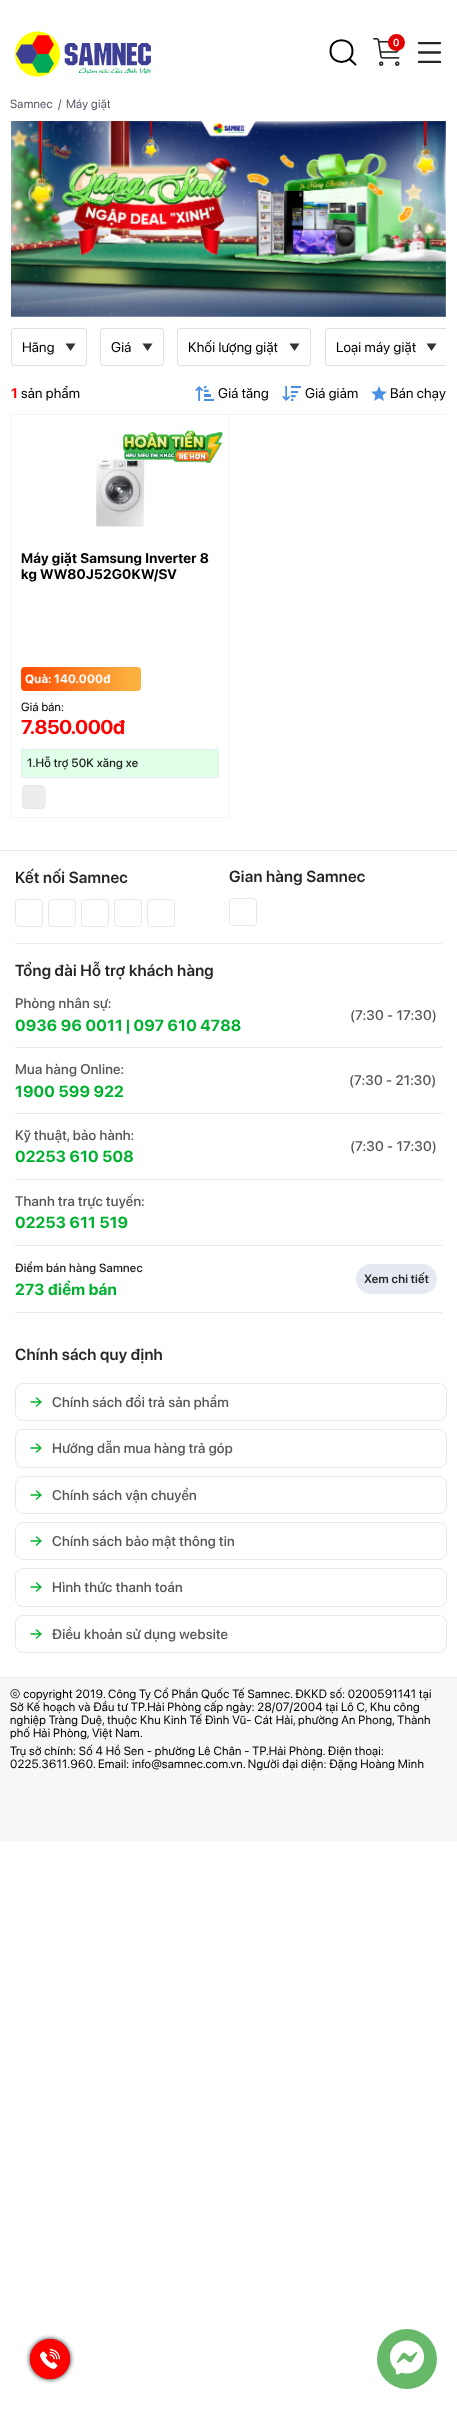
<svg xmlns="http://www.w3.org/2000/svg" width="457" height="2409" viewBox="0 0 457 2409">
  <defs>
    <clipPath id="clip1"><rect x="417" y="42" width="25" height="21"/></clipPath>
    <clipPath id="clip2"><rect x="11" y="328" width="435" height="44"/></clipPath>
    <linearGradient id="g1" gradientUnits="userSpaceOnUse" x1="141" y1="676" x2="21" y2="682"><stop offset="0.09" stop-color="rgb(252,176,64)"/><stop offset="1" stop-color="rgb(255,73,0)"/></linearGradient>
  </defs>
  <rect width="100%" height="100%" fill="rgb(255,255,255)"/>
  <image x="15" y="31" width="136" height="46" href="pic1.png"/>
  <path d="M355.5 64.5L349.5 59M352.5 51C352.5 65.5 330.5 65.5 330.5 51C330.5 36.5 352.5 36.5 352.5 51Z" fill="none" stroke="rgb(0,0,0)" stroke-width="2" stroke-linecap="round"/>
  <image x="373" y="38" width="27" height="28" href="pic2.png"/>
  <circle cx="396.5" cy="42.5" r="8.5" fill="rgb(226,0,0)"/>
  <text x="393" y="46" font-family="SF Pro Display" font-size="10" font-weight="600" letter-spacing="0.25" fill="rgb(255,255,255)">0</text>
  <g clip-path="url(#clip1)">
    <path d="M419 43H440" fill="none" stroke="rgb(37,37,37)" stroke-width="2.3" stroke-linecap="round"/>
  </g>
  <path d="M419 52.5H440" fill="none" stroke="rgb(37,37,37)" stroke-width="2.3" stroke-linecap="round"/>
  <g clip-path="url(#clip1)">
    <path d="M419 62H440" fill="none" stroke="rgb(37,37,37)" stroke-width="2.3" stroke-linecap="round"/>
  </g>
  <g font-family="SF Pro Display" font-size="12" letter-spacing="0.25" fill="rgb(90,91,106)">
    <text x="10" y="108">Samnec</text>
    <text x="58" y="108">/</text>
    <text x="66" y="108">Máy giặt</text>
  </g>
  <image x="11" y="121" width="435" height="196" href="pic3.png"/>
  <rect x="11.5" y="328.5" width="75" height="37" rx="2.5" fill="none" stroke="rgb(224,224,224)"/>
  <text x="22" y="352" font-family="SF Pro Display" font-size="14" letter-spacing="0.25" fill="rgb(0,0,0)">Hãng</text>
  <path d="M70.5 351L75.5 343.5H65.5Z" fill="rgb(51,51,51)"/>
  <rect x="100.5" y="328.5" width="63" height="37" rx="2.5" fill="none" stroke="rgb(224,224,224)"/>
  <text x="111" y="352" font-family="SF Pro Display" font-size="14" letter-spacing="0.25" fill="rgb(0,0,0)">Giá</text>
  <path d="M147.5 351L152.5 343.5H142.5Z" fill="rgb(51,51,51)"/>
  <rect x="177.5" y="328.5" width="133" height="37" rx="2.5" fill="none" stroke="rgb(224,224,224)"/>
  <text x="188" y="352" font-family="SF Pro Display" font-size="14" letter-spacing="0.25" fill="rgb(0,0,0)">Khối lượng giặt</text>
  <path d="M294.5 351L299.5 343.5H289.5Z" fill="rgb(51,51,51)"/>
  <g clip-path="url(#clip2)">
    <rect x="325.5" y="328.5" width="122" height="37" rx="2.5" fill="none" stroke="rgb(224,224,224)"/>
  </g>
  <text x="336" y="352" font-family="SF Pro Display" font-size="14" letter-spacing="0.25" fill="rgb(0,0,0)">Loại máy giặt</text>
  <path d="M431.5 351L436.5 343.5H426.5Z" fill="rgb(51,51,51)"/>
  <text x="11" y="398" font-family="SF Pro Display" font-size="14" font-weight="bold" letter-spacing="0.25" fill="rgb(255,0,0)">1</text>
  <text x="21" y="398" font-family="SF Pro Display" font-size="14" letter-spacing="0.25" fill="rgb(0,0,0)">sản phẩm</text>
  <image x="195" y="386" width="19" height="15" href="pic4.png"/>
  <text x="218" y="398" font-family="SF Pro Display" font-size="14" letter-spacing="0.25" fill="rgb(0,0,0)">Giá tăng</text>
  <image x="282" y="386" width="19" height="15" href="pic5.png"/>
  <text x="305" y="398" font-family="SF Pro Display" font-size="14" letter-spacing="0.25" fill="rgb(0,0,0)">Giá giảm</text>
  <image x="371" y="386" width="16" height="15" href="pic6.png"/>
  <text x="390" y="398" font-family="SF Pro Display" font-size="14" letter-spacing="0.25" fill="rgb(0,0,0)">Bán chạy</text>
  <rect x="11" y="414" width="435" height="1" fill="rgb(243,243,243)"/>
  <rect x="11" y="414" width="1" height="404" fill="rgb(243,243,243)"/>
  <rect x="228" y="415" width="1" height="403" fill="rgb(243,243,243)"/>
  <rect x="12" y="817" width="217" height="1" fill="rgb(243,243,243)"/>
  <image x="96" y="459" width="49" height="68" href="pic8.png"/>
  <image x="123" y="430" width="100" height="33" href="pic7.png"/>
  <g font-family="SF Pro Display" font-size="14" font-weight="bold" letter-spacing="0.25" fill="rgb(0,0,0)">
    <text>
      <tspan x="21" y="563">Máy giặt Samsung Inverter 8</tspan>
      <tspan x="21" y="579">kg WW80J52G0KW/SV</tspan>
    </text>
  </g>
  <rect x="21" y="667" width="120" height="24" rx="4" fill="url(#g1)"/>
  <text x="25" y="683" font-family="SF Pro Display" font-size="12" font-weight="bold" letter-spacing="0.25" fill="rgb(255,255,255)">Quà: 140.000đ</text>
  <text x="21" y="711" font-family="SF Pro Display" font-size="12" letter-spacing="0.25" fill="rgb(0,0,0)">Giá bán:</text>
  <text x="21" y="734" font-family="SF Pro Display" font-size="20" font-weight="bold" letter-spacing="-0.5" fill="rgb(255,0,0)">7.850.000đ</text>
  <rect x="21.5" y="749.5" width="197" height="28" rx="1.5" fill="rgb(224,255,232)" stroke="rgb(229,233,242)"/>
  <text x="27" y="767" font-family="SF Pro Display" font-size="12" font-weight="500" letter-spacing="0.25" fill="rgb(37,37,37)">1.Hỗ trợ 50K xăng xe</text>
  <image x="22" y="785" width="24" height="24" href="pic9.png"/>
  <rect x="0" y="850" width="457" height="1" fill="rgb(229,233,242)"/>
  <rect x="15" y="943" width="427" height="1" fill="rgb(234,234,234)"/>
  <text x="15" y="883" font-family="SF Pro Display" font-size="16" font-weight="600" letter-spacing="0.25" fill="rgb(37,37,37)">Kết nối Samnec</text>
  <rect x="15.5" y="899.5" width="27" height="27" rx="3.5" fill="none" stroke="rgb(229,233,242)"/>
  <rect x="48.5" y="899.5" width="27" height="27" rx="3.5" fill="none" stroke="rgb(229,233,242)"/>
  <rect x="81.5" y="899.5" width="27" height="27" rx="3.5" fill="none" stroke="rgb(229,233,242)"/>
  <rect x="114.5" y="899.5" width="27" height="27" rx="3.5" fill="none" stroke="rgb(229,233,242)"/>
  <rect x="147.5" y="899.5" width="27" height="27" rx="3.5" fill="none" stroke="rgb(229,233,242)"/>
  <text x="229" y="882" font-family="SF Pro Display" font-size="16" font-weight="600" letter-spacing="0.25" fill="rgb(37,37,37)">Gian hàng Samnec</text>
  <rect x="229.5" y="898.5" width="27" height="27" rx="3.5" fill="none" stroke="rgb(229,233,242)"/>
  <text x="15" y="976" font-family="SF Pro Display" font-size="16" font-weight="600" letter-spacing="0.25" fill="rgb(37,37,37)">Tổng đài Hỗ trợ khách hàng</text>
  <rect x="15" y="1047" width="427" height="1" fill="rgb(229,233,242)"/>
  <text x="15" y="1008" font-family="SF Pro Display" font-size="14" font-weight="500" letter-spacing="0.25" fill="rgb(85,85,85)">Phòng nhân sự:</text>
  <g font-family="SF Pro Display" font-size="16" font-weight="bold" letter-spacing="0.25" fill="rgb(0,177,47)">
    <text x="15" y="1031">0936 96 0011</text>
    <text x="126" y="1031">| 097 610 4788</text>
  </g>
  <text x="350" y="1020" font-family="SF Pro Display" font-size="14" font-weight="500" letter-spacing="0.25" fill="rgb(85,85,85)">(7:30 - 17:30)</text>
  <rect x="15" y="1113" width="427" height="1" fill="rgb(229,233,242)"/>
  <text x="15" y="1074" font-family="SF Pro Display" font-size="14" font-weight="500" letter-spacing="0.25" fill="rgb(85,85,85)">Mua hàng Online:</text>
  <text x="15" y="1097" font-family="SF Pro Display" font-size="16" font-weight="bold" letter-spacing="0.25" fill="rgb(0,177,47)">1900 599 922</text>
  <text x="349" y="1085" font-family="SF Pro Display" font-size="14" font-weight="500" letter-spacing="0.25" fill="rgb(85,85,85)">(7:30 - 21:30)</text>
  <rect x="15" y="1179" width="427" height="1" fill="rgb(229,233,242)"/>
  <text x="15" y="1140" font-family="SF Pro Display" font-size="14" font-weight="500" letter-spacing="0.25" fill="rgb(85,85,85)">Kỹ thuật, bảo hành:</text>
  <text x="15" y="1162" font-family="SF Pro Display" font-size="16" font-weight="bold" letter-spacing="0.25" fill="rgb(0,177,47)">02253 610 508</text>
  <text x="350" y="1151" font-family="SF Pro Display" font-size="14" font-weight="500" letter-spacing="0.25" fill="rgb(85,85,85)">(7:30 - 17:30)</text>
  <rect x="15" y="1245" width="427" height="1" fill="rgb(229,233,242)"/>
  <text x="15" y="1206" font-family="SF Pro Display" font-size="14" font-weight="500" letter-spacing="0.25" fill="rgb(85,85,85)">Thanh tra trực tuyến:</text>
  <text x="15" y="1228" font-family="SF Pro Display" font-size="16" font-weight="bold" letter-spacing="0.25" fill="rgb(0,177,47)">02253 611 519</text>
  <rect x="15" y="1312" width="427" height="1" fill="rgb(229,233,242)"/>
  <text x="15" y="1272" font-family="SF Pro Display" font-size="12" font-weight="500" letter-spacing="0.25" fill="rgb(37,37,37)">Điểm bán hàng Samnec</text>
  <text x="15" y="1295" font-family="SF Pro Display" font-size="16" font-weight="bold" letter-spacing="0.25" fill="rgb(0,177,47)">273 điểm bán</text>
  <rect x="356" y="1264" width="81" height="30" rx="15" fill="rgb(229,233,242)"/>
  <text x="364" y="1283" font-family="SF Pro Display" font-size="12" font-weight="600" letter-spacing="0.25" fill="rgb(37,37,37)">Xem chi tiết</text>
  <rect x="0" y="1677" width="457" height="1" fill="rgb(234,234,234)"/>
  <text x="15" y="1360" font-family="SF Pro Display" font-size="16" font-weight="600" letter-spacing="0.25" fill="rgb(37,37,37)">Chính sách quy định</text>
  <rect x="15.5" y="1383.5" width="431" height="37" rx="7.5" fill="none" stroke="rgb(229,233,242)"/>
  <path d="M41 1402H31M41 1402L36.5 1398M41 1402L36.5 1406" fill="none" stroke="rgb(0,177,47)" stroke-width="1.4" stroke-linecap="round" stroke-linejoin="round"/>
  <text x="52" y="1407" font-family="SF Pro Display" font-size="14" font-weight="500" letter-spacing="0.25" fill="rgb(85,85,85)">Chính sách đổi trả sản phẩm</text>
  <rect x="15.5" y="1429.5" width="431" height="38" rx="7.5" fill="none" stroke="rgb(229,233,242)"/>
  <path d="M41 1448H31M41 1448L36.5 1444M41 1448L36.5 1452" fill="none" stroke="rgb(0,177,47)" stroke-width="1.4" stroke-linecap="round" stroke-linejoin="round"/>
  <text x="52" y="1453" font-family="SF Pro Display" font-size="14" font-weight="500" letter-spacing="0.25" fill="rgb(85,85,85)">Hướng dẫn mua hàng trả góp</text>
  <rect x="15.5" y="1476.5" width="431" height="37" rx="7.5" fill="none" stroke="rgb(229,233,242)"/>
  <path d="M41 1495H31M41 1495L36.5 1491M41 1495L36.5 1499" fill="none" stroke="rgb(0,177,47)" stroke-width="1.4" stroke-linecap="round" stroke-linejoin="round"/>
  <text x="52" y="1500" font-family="SF Pro Display" font-size="14" font-weight="500" letter-spacing="0.25" fill="rgb(85,85,85)">Chính sách vận chuyển</text>
  <rect x="15.5" y="1522.5" width="431" height="37" rx="7.5" fill="none" stroke="rgb(229,233,242)"/>
  <path d="M41 1541H31M41 1541L36.5 1537M41 1541L36.5 1545" fill="none" stroke="rgb(0,177,47)" stroke-width="1.4" stroke-linecap="round" stroke-linejoin="round"/>
  <text x="52" y="1546" font-family="SF Pro Display" font-size="14" font-weight="500" letter-spacing="0.25" fill="rgb(85,85,85)">Chính sách bảo mật thông tin</text>
  <rect x="15.5" y="1568.5" width="431" height="38" rx="7.5" fill="none" stroke="rgb(229,233,242)"/>
  <path d="M41 1587H31M41 1587L36.5 1583M41 1587L36.5 1591" fill="none" stroke="rgb(0,177,47)" stroke-width="1.4" stroke-linecap="round" stroke-linejoin="round"/>
  <text x="52" y="1592" font-family="SF Pro Display" font-size="14" font-weight="500" letter-spacing="0.25" fill="rgb(85,85,85)">Hình thức thanh toán</text>
  <rect x="15.5" y="1615.5" width="431" height="37" rx="7.5" fill="none" stroke="rgb(229,233,242)"/>
  <path d="M41 1634H31M41 1634L36.5 1630M41 1634L36.5 1638" fill="none" stroke="rgb(0,177,47)" stroke-width="1.4" stroke-linecap="round" stroke-linejoin="round"/>
  <text x="52" y="1639" font-family="SF Pro Display" font-size="14" font-weight="500" letter-spacing="0.25" fill="rgb(85,85,85)">Điều khoản sử dụng website</text>
  <rect x="0" y="1678" width="457" height="163" fill="rgb(247,247,247)"/>
  <g font-family="SF Pro Display" font-size="12" letter-spacing="0.25" fill="rgb(0,0,0)">
    <text>
      <tspan x="10" y="1698">© copyright 2019. Công Ty Cổ Phần Quốc Tế Samnec. ĐKKD số: 0200591141 tại</tspan>
      <tspan x="10" y="1711">Sở Kế hoạch và Đầu tư TP.Hải Phòng cấp ngày: 28/07/2004 tại Lô C, Khu công</tspan>
      <tspan x="10" y="1724">nghiệp Tràng Duệ, thuộc Khu Kinh Tế Đình Vũ- Cát Hải, phường An Phong, Thành</tspan>
      <tspan x="10" y="1737">phố Hải Phòng, Việt Nam.</tspan>
      <tspan x="10" y="1755">Trụ sở chính: Số 4 Hồ Sen - phường Lê Chân - TP.Hải Phòng. Điện thoại:</tspan>
      <tspan x="10" y="1768">0225.3611.960. Email: info@samnec.com.vn. Người đại diện: Đặng Hoàng Minh</tspan>
    </text>
  </g>
  <circle cx="50" cy="2359" r="19.5" fill="none" stroke="rgb(255,0,0)"/>
  <rect x="30" y="2339" width="40" height="40" rx="20" fill="rgb(17,17,17)" filter="blur(2.5px)"/>
  <circle cx="50" cy="2359" r="20" fill="rgb(255,0,0)"/>
  <image x="40" y="2349" width="20" height="20" href="pic10.png"/>
  <circle cx="407" cy="2359" r="30" fill="rgb(103,184,104)"/>
  <image x="390" y="2340" width="34" height="35" href="pic11.png"/>
</svg>
